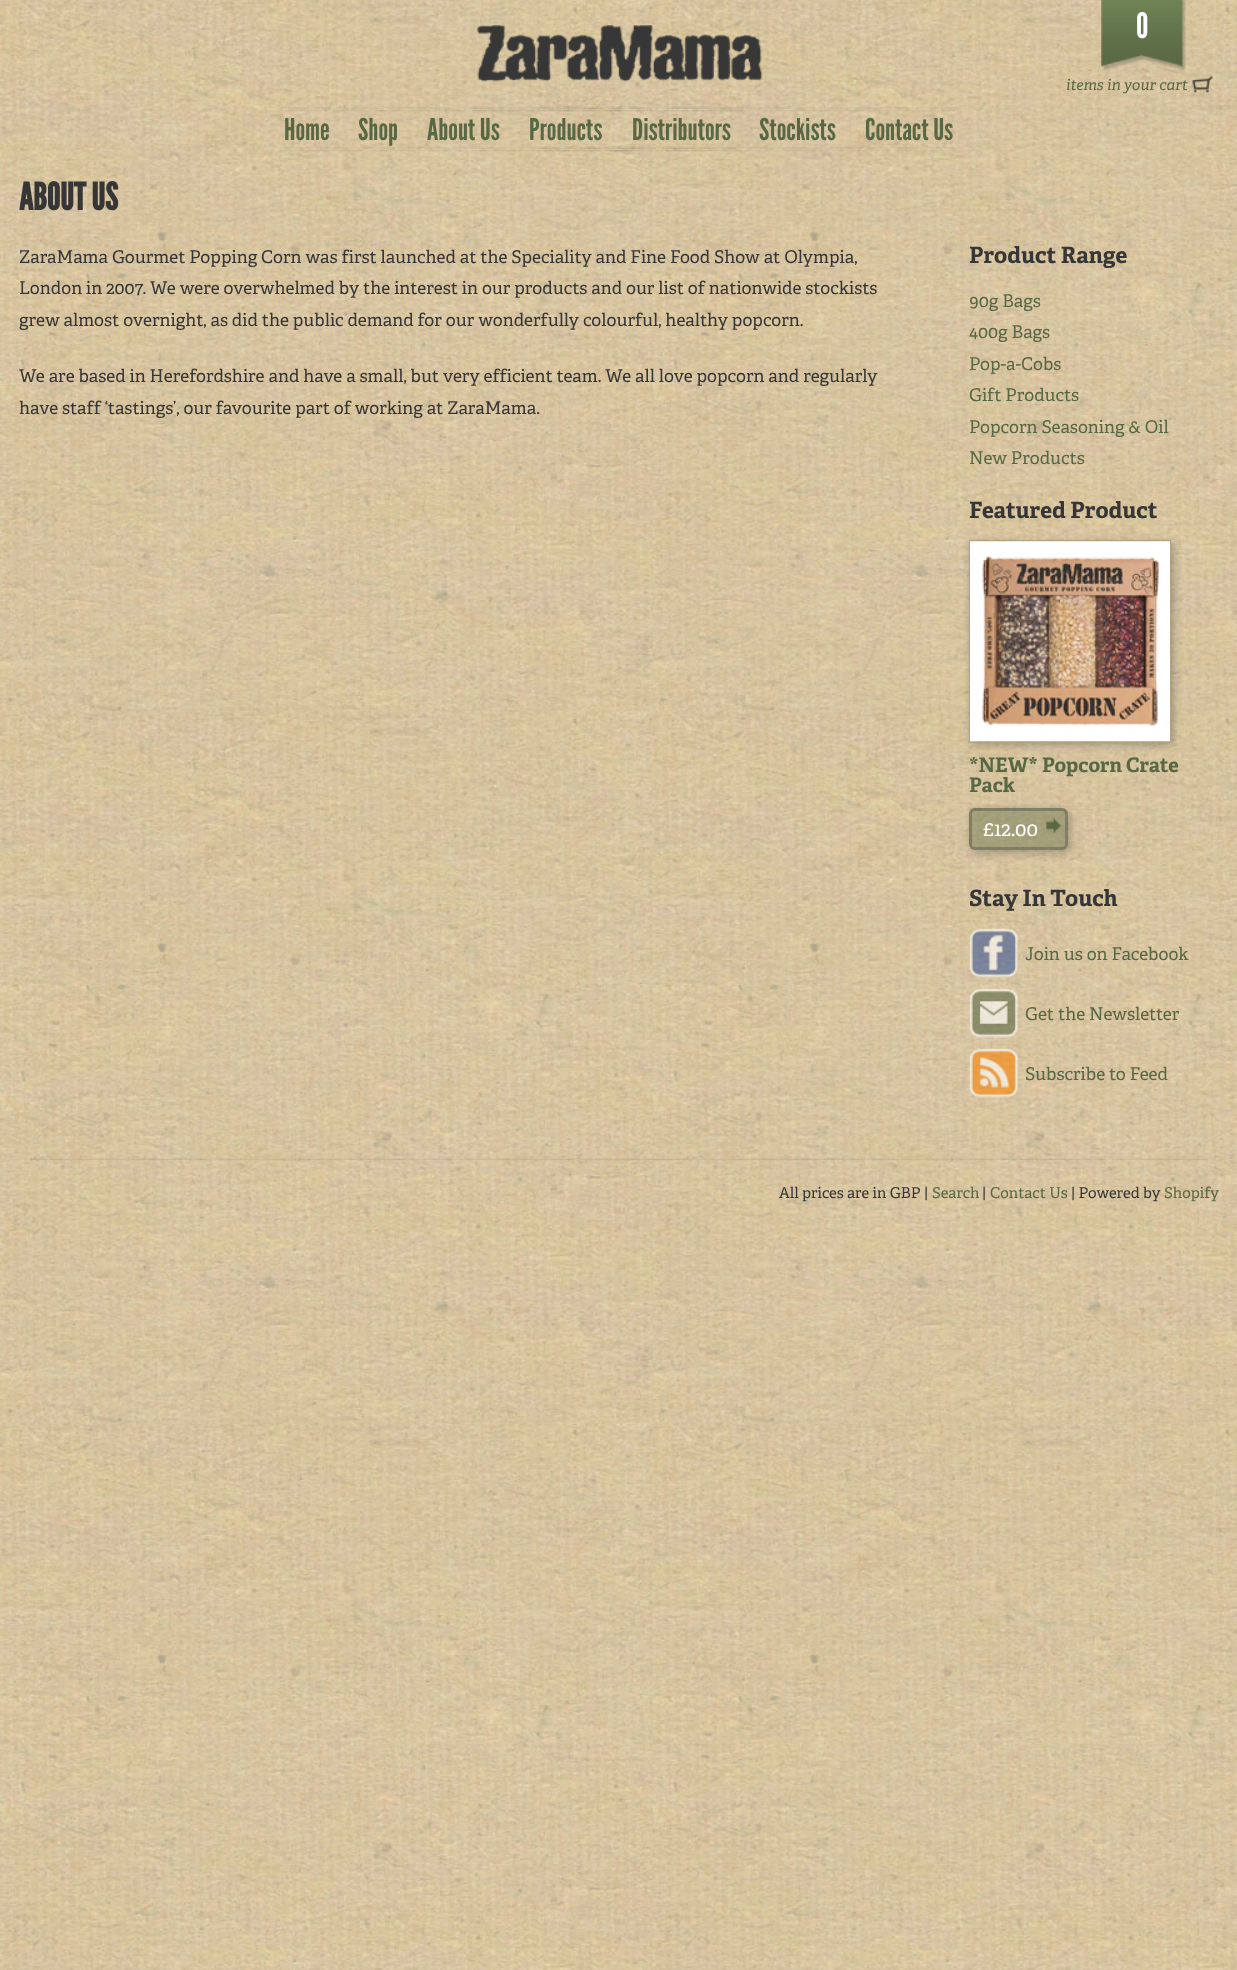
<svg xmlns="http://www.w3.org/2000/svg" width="1237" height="1970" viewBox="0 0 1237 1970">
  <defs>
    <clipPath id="clip1"><path d="M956 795H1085V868H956ZM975 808H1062C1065.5 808 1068 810.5 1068 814V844C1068 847.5 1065.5 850 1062 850H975C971.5 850 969 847.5 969 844V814C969 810.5 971.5 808 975 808Z" clip-rule="evenodd"/></clipPath>
  </defs>
  <rect width="100%" height="100%" fill="rgb(255,255,255)"/>
  <image x="0" y="0" width="1237" height="1970" href="pic1.png"/>
  <image x="476" y="25" width="287" height="57" href="pic2.png"/>
  <image x="1101" y="0" width="85" height="71" href="pic3.png"/>
  <text x="1136" y="38" font-family="League Gothic" font-size="35" fill="rgb(255,255,255)">0</text>
  <text x="1066" y="90" font-family="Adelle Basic" font-size="15" font-style="italic" fill="rgb(88,104,68)">items in your cart</text>
  <image x="1192" y="76" width="21" height="17" href="pic4.png"/>
  <image x="280" y="107" width="679" height="6" href="pic5.png"/>
  <image x="280" y="147" width="679" height="6" href="pic6.png"/>
  <g font-family="League Gothic" font-size="30" fill="rgb(88,104,68)">
    <text x="284" y="140">Home</text>
    <text x="358" y="140">Shop</text>
    <text x="427" y="140">About Us</text>
    <text x="529" y="140">Products</text>
    <text x="632" y="140">Distributors</text>
    <text x="759" y="140">Stockists</text>
    <text x="865" y="140">Contact Us</text>
  </g>
  <text x="19" y="210" font-family="League Gothic" font-size="37.5" font-weight="bold" fill="rgb(55,54,54)">ABOUT US</text>
  <g font-family="Adelle Basic" font-size="17.5" fill="rgb(55,54,54)">
    <text>
      <tspan x="19" y="263">ZaraMama Gourmet Popping Corn was first launched at the Speciality and Fine Food Show at Olympia,</tspan>
      <tspan x="19" y="294">London in 2007. We were overwhelmed by the interest in our products and our list of nationwide stockists</tspan>
      <tspan x="19" y="326">grew almost overnight, as did the public demand for our wonderfully colourful, healthy popcorn.</tspan>
    </text>
    <text>
      <tspan x="19" y="382">We are based in Herefordshire and have a small, but very efficient team. We all love popcorn and regularly</tspan>
      <tspan x="19" y="414">have staff ‘tastings’, our favourite part of working at ZaraMama.</tspan>
    </text>
  </g>
  <text x="969" y="263" font-family="Adelle Basic" font-size="22.5" font-weight="bold" fill="rgb(55,54,54)">Product Range</text>
  <g font-family="Adelle Basic" font-size="17.5" fill="rgb(88,104,68)">
    <text>
      <tspan x="969" y="307">90g Bags</tspan>
      <tspan x="969" y="338">400g Bags</tspan>
      <tspan x="969" y="370">Pop-a-Cobs</tspan>
      <tspan x="969" y="401">Gift Products</tspan>
      <tspan x="969" y="433">Popcorn Seasoning &amp; Oil</tspan>
      <tspan x="969" y="464">New Products</tspan>
    </text>
  </g>
  <text x="969" y="518" font-family="Adelle Basic" font-size="22.5" font-weight="bold" fill="rgb(55,54,54)">Featured Product</text>
  <rect x="971" y="543" width="203" height="202" fill="rgba(74,76,70,0.4)" filter="blur(4.5px)"/>
  <rect x="969.5" y="540.5" width="201" height="202" fill="none" stroke="rgb(174,163,124)"/>
  <image x="970" y="541" width="200" height="201" href="pic7.png"/>
  <g font-family="Adelle Basic" font-size="20" font-weight="bold" fill="rgb(88,104,68)">
    <text>
      <tspan x="969" y="772">*NEW* Popcorn Crate</tspan>
      <tspan x="969" y="792">Pack</tspan>
    </text>
  </g>
  <g clip-path="url(#clip1)">
    <rect x="971" y="810" width="99" height="43" rx="6" fill="rgba(74,76,70,0.4)" filter="blur(4.5px)"/>
  </g>
  <rect x="969" y="808" width="99" height="42" rx="6" fill="rgba(88,104,68,0.4)"/>
  <image x="1046" y="817" width="16" height="17" href="pic8.png"/>
  <rect x="970.5" y="809.5" width="96" height="39" rx="4.5" fill="none" stroke="rgba(74,76,70,0.4)" stroke-width="3"/>
  <text x="983" y="836" font-family="Adelle Basic" font-size="20" fill="rgb(255,255,255)">£12.00</text>
  <text x="969" y="906" font-family="Adelle Basic" font-size="22.5" font-weight="bold" fill="rgb(55,54,54)">Stay In Touch</text>
  <image x="969" y="928" width="50" height="50" href="pic9.png"/>
  <text x="1025" y="960" font-family="Adelle Basic" font-size="17.5" fill="rgb(88,104,68)">Join us on Facebook</text>
  <image x="969" y="988" width="50" height="50" href="pic10.png"/>
  <text x="1025" y="1020" font-family="Adelle Basic" font-size="17.5" fill="rgb(88,104,68)">Get the Newsletter</text>
  <image x="969" y="1048" width="50" height="50" href="pic11.png"/>
  <text x="1025" y="1080" font-family="Adelle Basic" font-size="17.5" fill="rgb(88,104,68)">Subscribe to Feed</text>
  <image x="30" y="1158" width="1178" height="3" href="pic12.png"/>
  <text x="779" y="1198" font-family="Adelle Basic" font-size="15" fill="rgb(55,54,54)">All prices are in GBP |</text>
  <text x="932" y="1198" font-family="Adelle Basic" font-size="15" fill="rgb(88,104,68)">Search</text>
  <text x="982" y="1198" font-family="Adelle Basic" font-size="15" fill="rgb(55,54,54)">|</text>
  <text x="990" y="1198" font-family="Adelle Basic" font-size="15" fill="rgb(88,104,68)">Contact Us</text>
  <text x="1071" y="1198" font-family="Adelle Basic" font-size="15" fill="rgb(55,54,54)">| Powered by</text>
  <text x="1164" y="1198" font-family="Adelle Basic" font-size="15" fill="rgb(88,104,68)">Shopify</text>
</svg>
